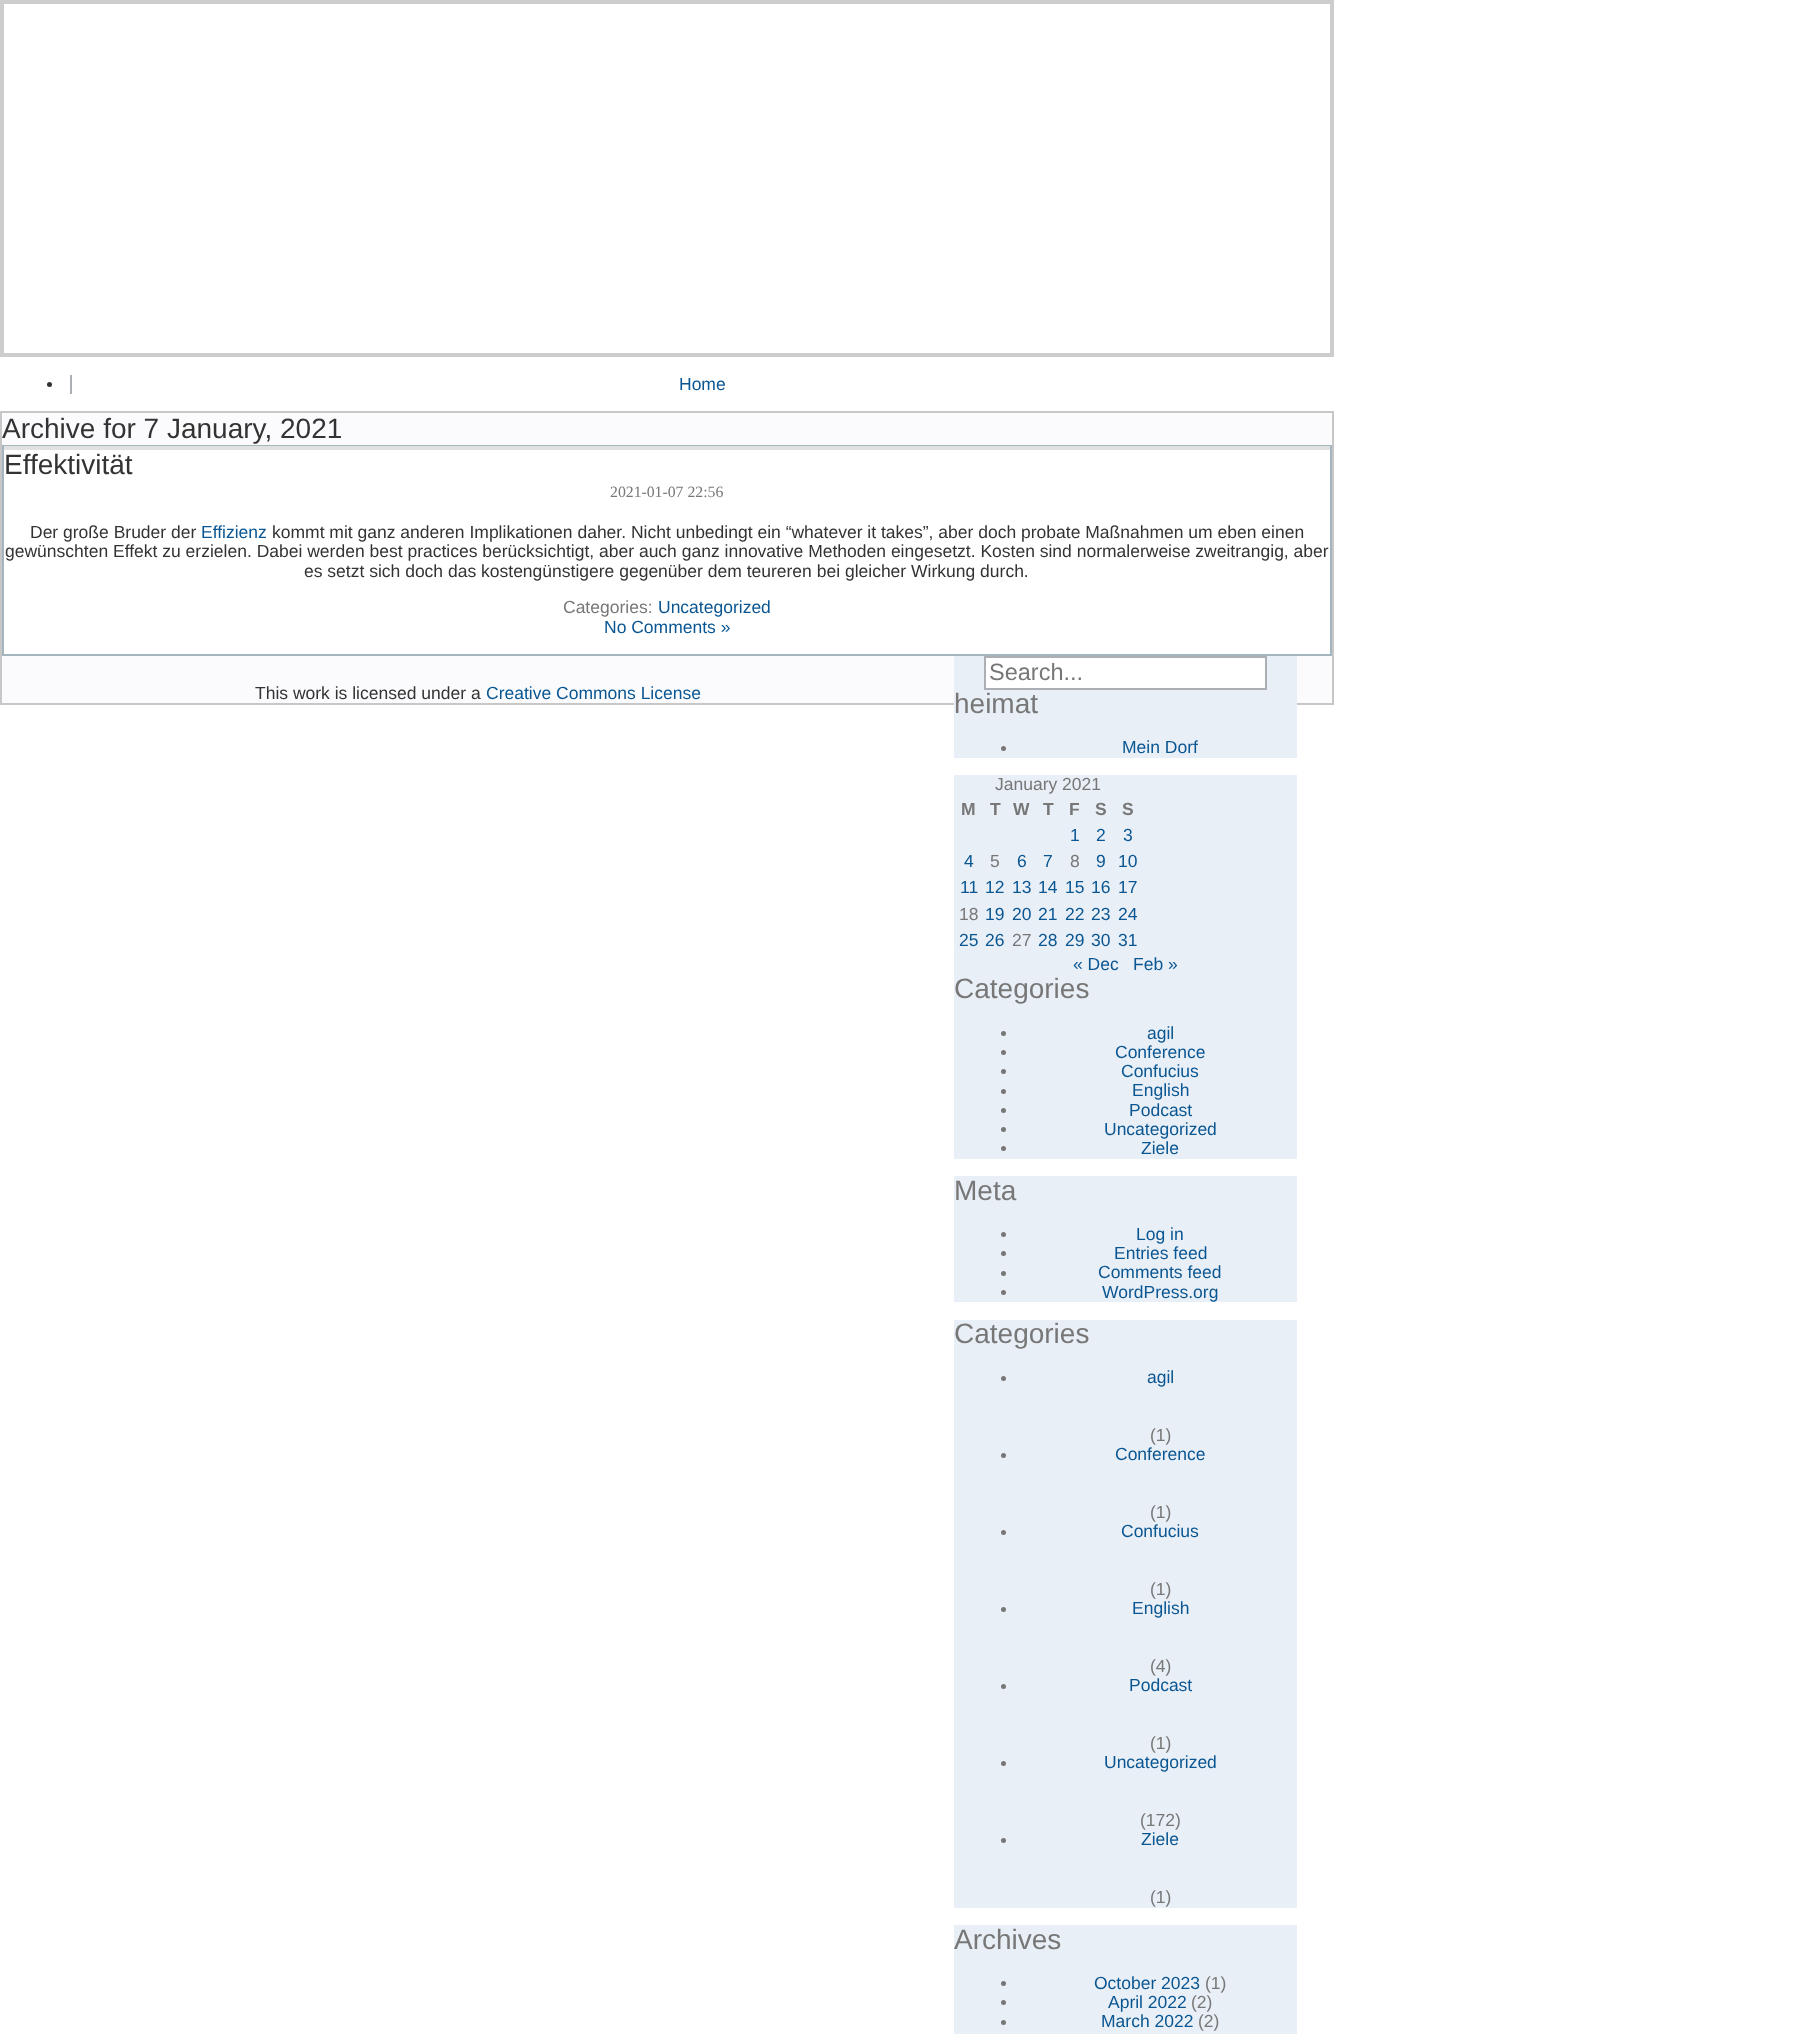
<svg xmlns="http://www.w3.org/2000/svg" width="1793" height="2034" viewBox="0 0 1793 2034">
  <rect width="100%" height="100%" fill="rgb(255,255,255)"/>
  <rect x="1" y="1" width="1332" height="355" fill="none" stroke="rgb(205,205,205)" stroke-width="2"/>
  <rect x="3" y="3" width="1328" height="351" fill="none" stroke="rgb(205,205,205)" stroke-width="2"/>
  <rect x="70" y="375" width="2" height="19" fill="rgb(172,176,181)"/>
  <circle cx="49.5" cy="384.5" r="2.5" fill="rgb(51,51,51)"/>
  <text x="679" y="390" font-family="Liberation Sans" font-size="17.5" fill="rgb(10,86,146)">Home</text>
  <rect x="1" y="412" width="1332" height="292" fill="rgb(251,251,253)" stroke="rgb(199,199,199)" stroke-width="2"/>
  <text x="2" y="438" font-family="Liberation Sans" font-size="28" fill="rgb(51,51,51)">Archive for 7 January, 2021</text>
  <rect x="4" y="450" width="1326" height="204" fill="rgb(255,255,255)"/>
  <rect x="3" y="446" width="1328" height="209" fill="none" stroke="rgb(164,181,189)" stroke-width="2"/>
  <rect x="4" y="446" width="1326" height="4" fill="rgb(225,225,225)"/>
  <text x="4" y="474" font-family="Liberation Sans" font-size="28" fill="rgb(51,51,51)">Effektivität</text>
  <text x="610" y="497" font-family="Liberation Serif" font-size="15.75" fill="rgb(119,119,119)">2021-01-07 22:56</text>
  <text x="30" y="538" font-family="Liberation Sans" font-size="17.5" fill="rgb(51,51,51)">Der große Bruder der</text>
  <text x="201" y="538" font-family="Liberation Sans" font-size="17.5" fill="rgb(10,86,146)">Effizienz</text>
  <g font-family="Liberation Sans" font-size="17.5" fill="rgb(51,51,51)">
    <text x="272" y="538">kommt mit ganz anderen Implikationen daher. Nicht unbedingt ein “whatever it takes”, aber doch probate Maßnahmen um eben einen</text>
    <text x="5" y="557">gewünschten Effekt zu erzielen. Dabei werden best practices berücksichtigt, aber auch ganz innovative Methoden eingesetzt. Kosten sind normalerweise zweitrangig, aber</text>
    <text x="304" y="577">es setzt sich doch das kostengünstigere gegenüber dem teureren bei gleicher Wirkung durch.</text>
  </g>
  <text x="563" y="613" font-family="Liberation Sans" font-size="17.5" fill="rgb(119,119,119)">Categories:</text>
  <g font-family="Liberation Sans" font-size="17.5" fill="rgb(10,86,146)">
    <text x="658" y="613">Uncategorized</text>
    <text x="604" y="633">No Comments »</text>
  </g>
  <text x="255" y="699" font-family="Liberation Sans" font-size="17.5" fill="rgb(51,51,51)">This work is licensed under a</text>
  <text x="486" y="699" font-family="Liberation Sans" font-size="17.5" fill="rgb(10,86,146)">Creative Commons License</text>
  <rect x="954" y="656" width="343" height="102" fill="rgb(233,239,246)"/>
  <rect x="985" y="657" width="281" height="32" fill="rgb(255,255,255)" stroke="rgb(172,176,181)" stroke-width="2"/>
  <text x="989" y="680" font-family="Liberation Sans" font-size="23.5" fill="rgb(119,119,119)">Search...</text>
  <text x="954" y="713" font-family="Liberation Sans" font-size="28" fill="rgb(119,119,119)">heimat</text>
  <circle cx="1003.5" cy="748.5" r="2.5" fill="rgb(119,119,119)"/>
  <text x="1122" y="753" font-family="Liberation Sans" font-size="17.5" fill="rgb(10,86,146)">Mein Dorf</text>
  <rect x="954" y="775" width="343" height="384" fill="rgb(233,239,246)"/>
  <text x="995" y="790" font-family="Liberation Sans" font-size="17.5" fill="rgb(119,119,119)">January 2021</text>
  <g font-family="Liberation Sans" font-size="17.5" font-weight="bold" fill="rgb(119,119,119)">
    <text x="961" y="815">M</text>
    <text x="990" y="815">T</text>
    <text x="1013" y="815">W</text>
    <text x="1043" y="815">T</text>
    <text x="1069" y="815">F</text>
    <text x="1095" y="815">S</text>
    <text x="1122" y="815">S</text>
  </g>
  <g font-family="Liberation Sans" font-size="17.5" fill="rgb(10,86,146)">
    <text x="1070" y="841">1</text>
    <text x="1096" y="841">2</text>
    <text x="1123" y="841">3</text>
    <text x="964" y="867">4</text>
  </g>
  <text x="990" y="867" font-family="Liberation Sans" font-size="17.5" fill="rgb(119,119,119)">5</text>
  <g font-family="Liberation Sans" font-size="17.5" fill="rgb(10,86,146)">
    <text x="1017" y="867">6</text>
    <text x="1043" y="867">7</text>
  </g>
  <text x="1070" y="867" font-family="Liberation Sans" font-size="17.5" fill="rgb(119,119,119)">8</text>
  <g font-family="Liberation Sans" font-size="17.5" fill="rgb(10,86,146)">
    <text x="1096" y="867">9</text>
    <text x="1118" y="867">10</text>
    <text x="960" y="893">11</text>
    <text x="985" y="893">12</text>
    <text x="1012" y="893">13</text>
    <text x="1038" y="893">14</text>
    <text x="1065" y="893">15</text>
    <text x="1091" y="893">16</text>
    <text x="1118" y="893">17</text>
  </g>
  <text x="959" y="920" font-family="Liberation Sans" font-size="17.5" fill="rgb(119,119,119)">18</text>
  <g font-family="Liberation Sans" font-size="17.5" fill="rgb(10,86,146)">
    <text x="985" y="920">19</text>
    <text x="1012" y="920">20</text>
    <text x="1038" y="920">21</text>
    <text x="1065" y="920">22</text>
    <text x="1091" y="920">23</text>
    <text x="1118" y="920">24</text>
    <text x="959" y="946">25</text>
    <text x="985" y="946">26</text>
  </g>
  <text x="1012" y="946" font-family="Liberation Sans" font-size="17.5" fill="rgb(119,119,119)">27</text>
  <g font-family="Liberation Sans" font-size="17.5" fill="rgb(10,86,146)">
    <text x="1038" y="946">28</text>
    <text x="1065" y="946">29</text>
    <text x="1091" y="946">30</text>
    <text x="1118" y="946">31</text>
    <text x="1073" y="970">« Dec</text>
    <text x="1133" y="970">Feb »</text>
  </g>
  <text x="954" y="998" font-family="Liberation Sans" font-size="28" fill="rgb(119,119,119)">Categories</text>
  <circle cx="1003.5" cy="1033.5" r="2.5" fill="rgb(119,119,119)"/>
  <text x="1147" y="1039" font-family="Liberation Sans" font-size="17.5" fill="rgb(10,86,146)">agil</text>
  <circle cx="1003.5" cy="1052.5" r="2.5" fill="rgb(119,119,119)"/>
  <text x="1115" y="1058" font-family="Liberation Sans" font-size="17.5" fill="rgb(10,86,146)">Conference</text>
  <circle cx="1003.5" cy="1071.5" r="2.5" fill="rgb(119,119,119)"/>
  <text x="1121" y="1077" font-family="Liberation Sans" font-size="17.5" fill="rgb(10,86,146)">Confucius</text>
  <circle cx="1003.5" cy="1091.5" r="2.5" fill="rgb(119,119,119)"/>
  <text x="1132" y="1096" font-family="Liberation Sans" font-size="17.5" fill="rgb(10,86,146)">English</text>
  <circle cx="1003.5" cy="1110.5" r="2.5" fill="rgb(119,119,119)"/>
  <text x="1129" y="1116" font-family="Liberation Sans" font-size="17.5" fill="rgb(10,86,146)">Podcast</text>
  <circle cx="1003.5" cy="1129.5" r="2.5" fill="rgb(119,119,119)"/>
  <text x="1104" y="1135" font-family="Liberation Sans" font-size="17.5" fill="rgb(10,86,146)">Uncategorized</text>
  <circle cx="1003.5" cy="1148.5" r="2.5" fill="rgb(119,119,119)"/>
  <text x="1141" y="1154" font-family="Liberation Sans" font-size="17.5" fill="rgb(10,86,146)">Ziele</text>
  <rect x="954" y="1176" width="343" height="126" fill="rgb(233,239,246)"/>
  <text x="954" y="1200" font-family="Liberation Sans" font-size="28" fill="rgb(119,119,119)">Meta</text>
  <circle cx="1003.5" cy="1234.5" r="2.5" fill="rgb(119,119,119)"/>
  <text x="1136" y="1240" font-family="Liberation Sans" font-size="17.5" fill="rgb(10,86,146)">Log in</text>
  <circle cx="1003.5" cy="1253.5" r="2.5" fill="rgb(119,119,119)"/>
  <text x="1114" y="1259" font-family="Liberation Sans" font-size="17.5" fill="rgb(10,86,146)">Entries feed</text>
  <circle cx="1003.5" cy="1273.5" r="2.5" fill="rgb(119,119,119)"/>
  <text x="1098" y="1278" font-family="Liberation Sans" font-size="17.5" fill="rgb(10,86,146)">Comments feed</text>
  <circle cx="1003.5" cy="1292.5" r="2.5" fill="rgb(119,119,119)"/>
  <text x="1102" y="1298" font-family="Liberation Sans" font-size="17.5" fill="rgb(10,86,146)">WordPress.org</text>
  <rect x="954" y="1320" width="343" height="588" fill="rgb(233,239,246)"/>
  <text x="954" y="1343" font-family="Liberation Sans" font-size="28" fill="rgb(119,119,119)">Categories</text>
  <circle cx="1003.5" cy="1378.5" r="2.5" fill="rgb(119,119,119)"/>
  <text x="1147" y="1383" font-family="Liberation Sans" font-size="17.5" fill="rgb(10,86,146)">agil</text>
  <text x="1150" y="1441" font-family="Liberation Sans" font-size="17.5" fill="rgb(119,119,119)">(1)</text>
  <circle cx="1003.5" cy="1455.5" r="2.5" fill="rgb(119,119,119)"/>
  <text x="1115" y="1460" font-family="Liberation Sans" font-size="17.5" fill="rgb(10,86,146)">Conference</text>
  <text x="1150" y="1518" font-family="Liberation Sans" font-size="17.5" fill="rgb(119,119,119)">(1)</text>
  <circle cx="1003.5" cy="1532.5" r="2.5" fill="rgb(119,119,119)"/>
  <text x="1121" y="1537" font-family="Liberation Sans" font-size="17.5" fill="rgb(10,86,146)">Confucius</text>
  <text x="1150" y="1595" font-family="Liberation Sans" font-size="17.5" fill="rgb(119,119,119)">(1)</text>
  <circle cx="1003.5" cy="1609.5" r="2.5" fill="rgb(119,119,119)"/>
  <text x="1132" y="1614" font-family="Liberation Sans" font-size="17.5" fill="rgb(10,86,146)">English</text>
  <text x="1150" y="1672" font-family="Liberation Sans" font-size="17.5" fill="rgb(119,119,119)">(4)</text>
  <circle cx="1003.5" cy="1686.5" r="2.5" fill="rgb(119,119,119)"/>
  <text x="1129" y="1691" font-family="Liberation Sans" font-size="17.5" fill="rgb(10,86,146)">Podcast</text>
  <text x="1150" y="1749" font-family="Liberation Sans" font-size="17.5" fill="rgb(119,119,119)">(1)</text>
  <circle cx="1003.5" cy="1763.5" r="2.5" fill="rgb(119,119,119)"/>
  <text x="1104" y="1768" font-family="Liberation Sans" font-size="17.5" fill="rgb(10,86,146)">Uncategorized</text>
  <text x="1140" y="1826" font-family="Liberation Sans" font-size="17.5" fill="rgb(119,119,119)">(172)</text>
  <circle cx="1003.5" cy="1840.5" r="2.5" fill="rgb(119,119,119)"/>
  <text x="1141" y="1845" font-family="Liberation Sans" font-size="17.5" fill="rgb(10,86,146)">Ziele</text>
  <text x="1150" y="1903" font-family="Liberation Sans" font-size="17.5" fill="rgb(119,119,119)">(1)</text>
  <rect x="954" y="1925" width="343" height="109" fill="rgb(233,239,246)"/>
  <text x="954" y="1949" font-family="Liberation Sans" font-size="28" fill="rgb(119,119,119)">Archives</text>
  <circle cx="1003.5" cy="1983.5" r="2.5" fill="rgb(119,119,119)"/>
  <text x="1094" y="1989" font-family="Liberation Sans" font-size="17.5" fill="rgb(10,86,146)">October 2023</text>
  <text x="1205" y="1989" font-family="Liberation Sans" font-size="17.5" fill="rgb(119,119,119)">(1)</text>
  <circle cx="1003.5" cy="2002.5" r="2.5" fill="rgb(119,119,119)"/>
  <text x="1108" y="2008" font-family="Liberation Sans" font-size="17.5" fill="rgb(10,86,146)">April 2022</text>
  <text x="1191" y="2008" font-family="Liberation Sans" font-size="17.5" fill="rgb(119,119,119)">(2)</text>
  <circle cx="1003.5" cy="2022.5" r="2.5" fill="rgb(119,119,119)"/>
  <text x="1101" y="2027" font-family="Liberation Sans" font-size="17.5" fill="rgb(10,86,146)">March 2022</text>
  <text x="1198" y="2027" font-family="Liberation Sans" font-size="17.5" fill="rgb(119,119,119)">(2)</text>
</svg>
